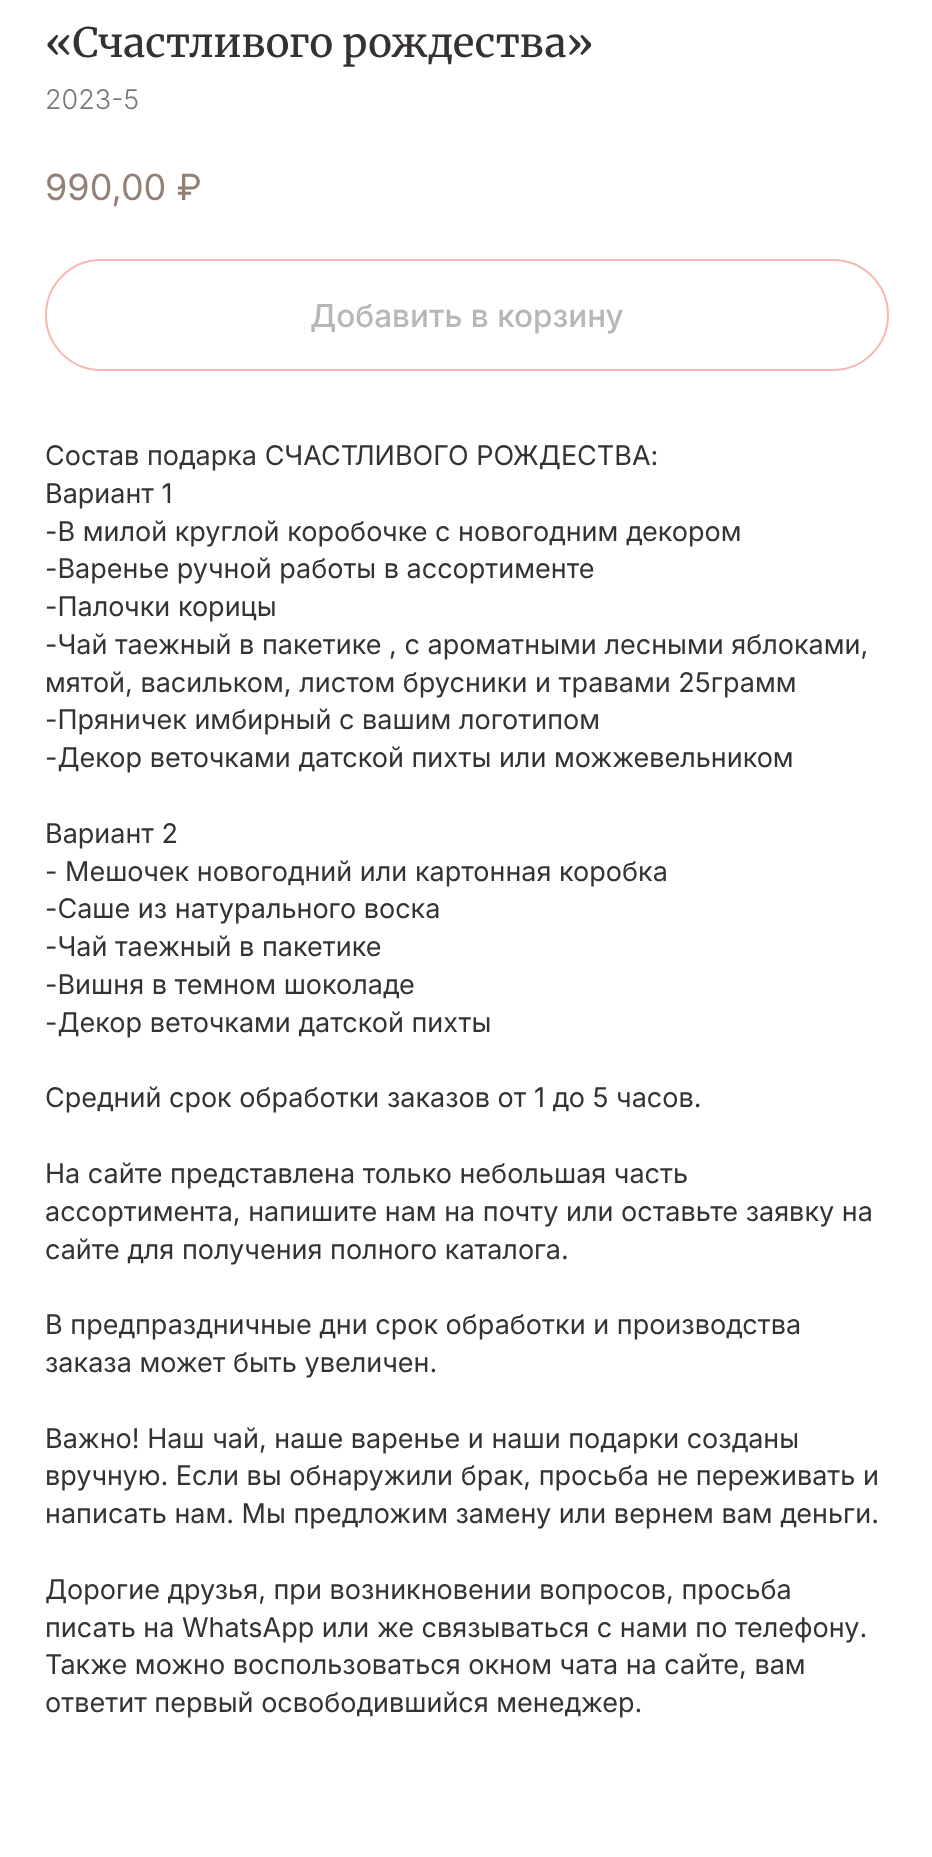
<svg xmlns="http://www.w3.org/2000/svg" width="932" height="1857" viewBox="0 0 932 1857">
  <rect width="100%" height="100%" fill="rgb(255,255,255)"/>
  <text x="45" y="57" font-family="Merriweather" font-size="40.5" font-weight="500" fill="rgb(53,50,48)">«Счастливого рождества»</text>
  <text x="45" y="109" font-family="Inter" font-size="27" font-weight="300" fill="rgb(119,119,119)">2023-5</text>
  <text x="45" y="200" font-family="Inter" font-size="36" fill="rgb(147,129,119)">990,00 ₽</text>
  <rect x="46" y="260" width="842" height="110" rx="55" fill="none" stroke="rgb(247,182,178)" stroke-width="2"/>
  <text x="310" y="327" font-family="Inter" font-size="31.5" font-weight="500" fill="rgb(184,183,183)">Добавить в корзину</text>
  <g font-family="Inter" font-size="27" fill="rgb(53,50,48)">
    <text>
      <tspan x="45" y="465">Состав подарка СЧАСТЛИВОГО РОЖДЕСТВА:</tspan>
      <tspan x="45" y="503">Вариант 1</tspan>
      <tspan x="45" y="541">-В милой круглой коробочке с новогодним декором</tspan>
      <tspan x="45" y="578">-Варенье ручной работы в ассортименте</tspan>
      <tspan x="45" y="616">-Палочки корицы</tspan>
      <tspan x="45" y="654">-Чай таежный в пакетике , с ароматными лесными яблоками,</tspan>
      <tspan x="45" y="692">мятой, васильком, листом брусники и травами 25грамм</tspan>
      <tspan x="45" y="729">-Пряничек имбирный с вашим логотипом</tspan>
      <tspan x="45" y="767">-Декор веточками датской пихты или можжевельником</tspan>
    </text>
    <text>
      <tspan x="45" y="843">Вариант 2</tspan>
      <tspan x="45" y="881">- Мешочек новогодний или картонная коробка</tspan>
      <tspan x="45" y="918">-Саше из натурального воска</tspan>
      <tspan x="45" y="956">-Чай таежный в пакетике</tspan>
      <tspan x="45" y="994">-Вишня в темном шоколаде</tspan>
      <tspan x="45" y="1032">-Декор веточками датской пихты</tspan>
    </text>
    <text x="45" y="1107">Средний срок обработки заказов от 1 до 5 часов.</text>
    <text>
      <tspan x="45" y="1183">На сайте представлена только небольшая часть</tspan>
      <tspan x="45" y="1221">ассортимента, напишите нам на почту или оставьте заявку на</tspan>
      <tspan x="45" y="1259">сайте для получения полного каталога.</tspan>
    </text>
    <text>
      <tspan x="45" y="1334">В предпраздничные дни срок обработки и производства</tspan>
      <tspan x="45" y="1372">заказа может быть увеличен.</tspan>
    </text>
    <text>
      <tspan x="45" y="1448">Важно! Наш чай, наше варенье и наши подарки созданы</tspan>
      <tspan x="45" y="1485">вручную. Если вы обнаружили брак, просьба не переживать и</tspan>
      <tspan x="45" y="1523">написать нам. Мы предложим замену или вернем вам деньги.</tspan>
    </text>
    <text>
      <tspan x="45" y="1599">Дорогие друзья, при возникновении вопросов, просьба</tspan>
      <tspan x="45" y="1637">писать на WhatsApp или же связываться с нами по телефону.</tspan>
      <tspan x="45" y="1674">Также можно воспользоваться окном чата на сайте, вам</tspan>
      <tspan x="45" y="1712">ответит первый освободившийся менеджер.</tspan>
    </text>
  </g>
</svg>
